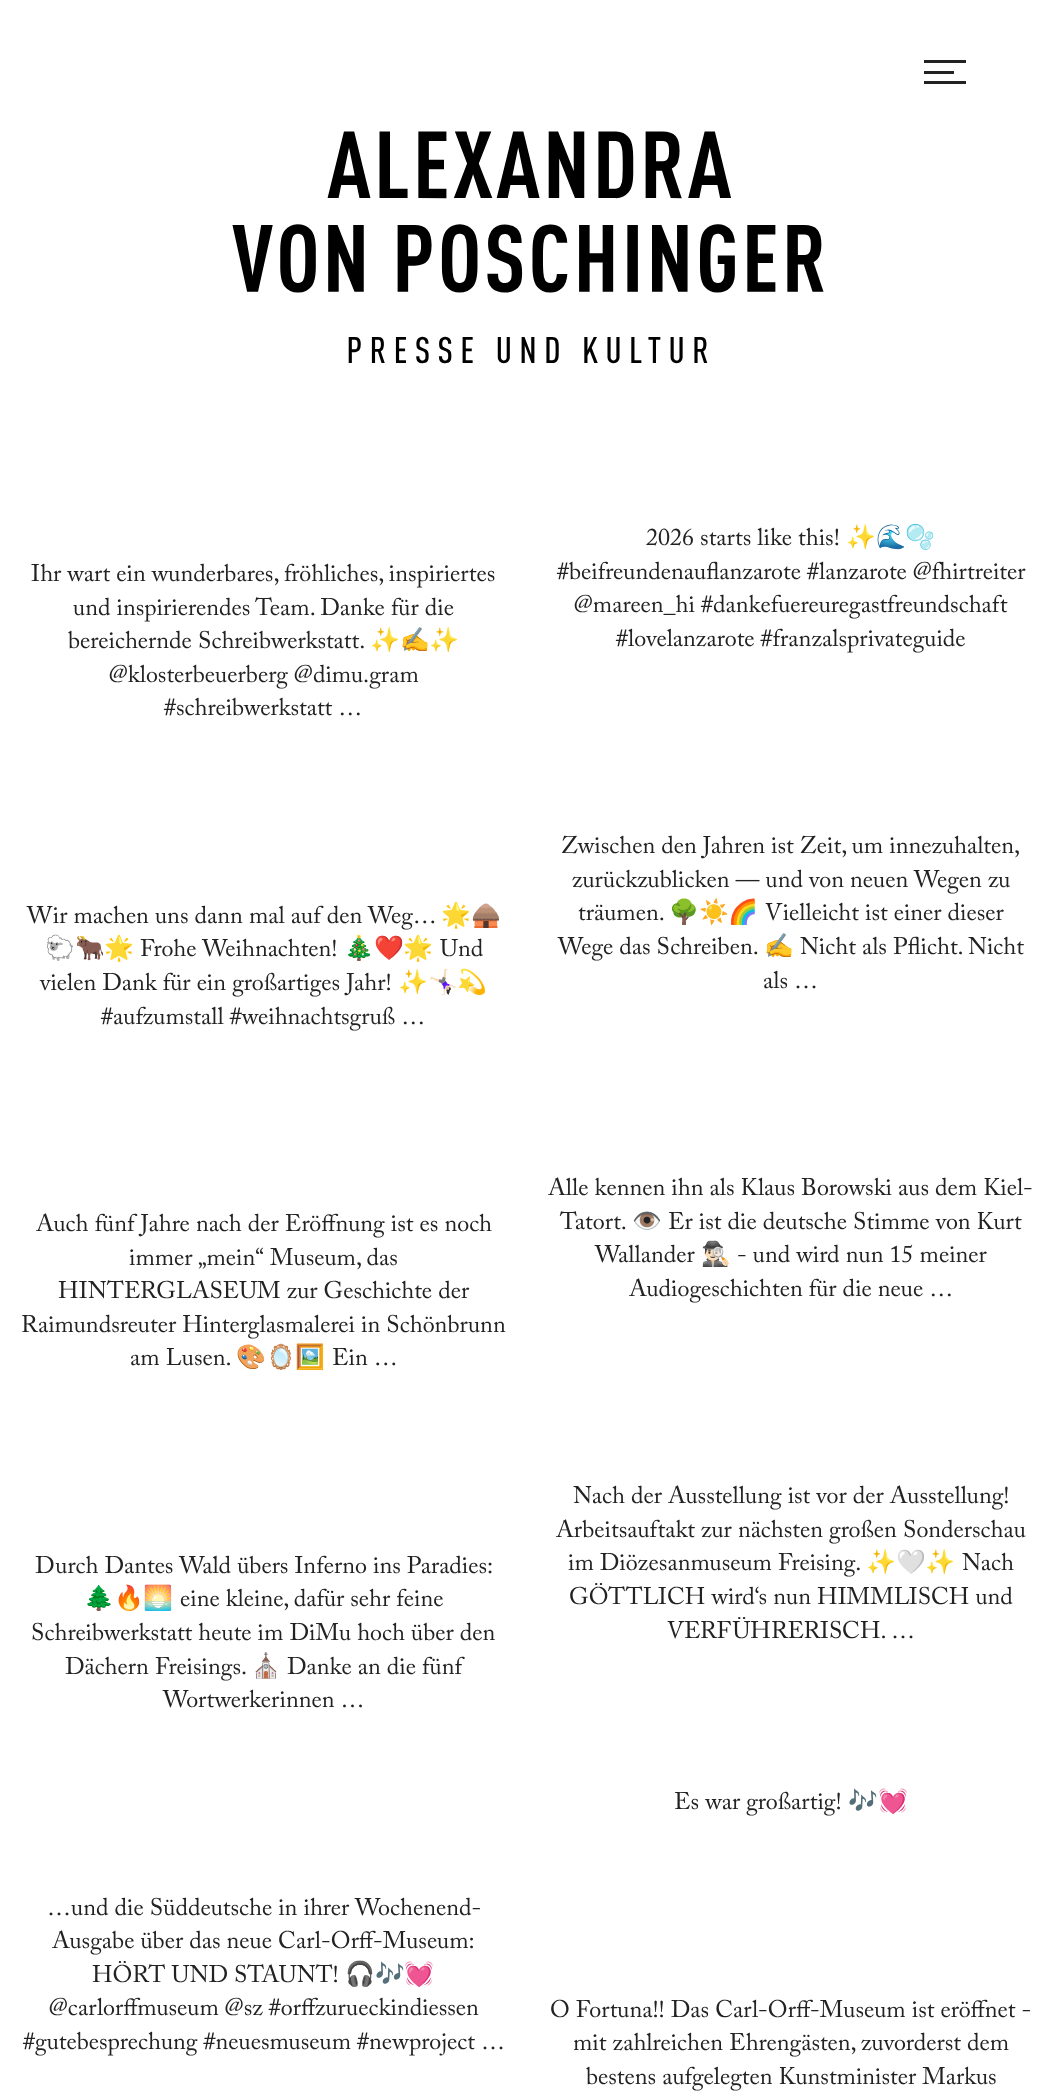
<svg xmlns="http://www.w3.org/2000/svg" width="1054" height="2096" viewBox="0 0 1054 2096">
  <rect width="100%" height="100%" fill="rgb(255,255,255)"/>
  <rect x="924" y="60" width="42" height="3" fill="rgb(34,34,34)"/>
  <rect x="924" y="71" width="30" height="3" fill="rgb(34,34,34)"/>
  <rect x="924" y="81" width="42" height="3" fill="rgb(34,34,34)"/>
  <image x="232" y="131" width="592" height="233" href="pic1.png"/>
  <g font-family="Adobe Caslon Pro" font-size="24" fill="rgb(34,34,34)">
    <text x="31" y="581">Ihr wart ein wunderbares, fröhliches, inspiriertes</text>
    <text x="73" y="615">und inspirierendes Team. Danke für die</text>
    <text x="68" y="648">bereichernde Schreibwerkstatt.</text>
  </g>
  <text x="370" y="648" font-family="Noto Color Emoji" font-size="24" fill="rgb(34,34,34)">✨✍️✨</text>
  <g font-family="Adobe Caslon Pro" font-size="24" fill="rgb(34,34,34)">
    <text x="109" y="682">@klosterbeuerberg @dimu.gram</text>
    <text x="164" y="715">#schreibwerkstatt …</text>
    <text x="646" y="545">2026 starts like this!</text>
  </g>
  <text x="846" y="545" font-family="Noto Color Emoji" font-size="24" fill="rgb(34,34,34)">✨🌊🫧</text>
  <g font-family="Adobe Caslon Pro" font-size="24" fill="rgb(34,34,34)">
    <text x="557" y="579">#beifreundenauflanzarote #lanzarote @fhirtreiter</text>
    <text x="574" y="612">@mareen_hi #dankefuereuregastfreundschaft</text>
    <text x="616" y="646">#lovelanzarote #franzalsprivateguide</text>
    <text x="27" y="923">Wir machen uns dann mal auf den Weg…</text>
  </g>
  <g font-family="Noto Color Emoji" font-size="24" fill="rgb(34,34,34)">
    <text x="441" y="923">🌟🛖</text>
    <text x="45" y="956">🐑🐂🌟</text>
  </g>
  <text x="140" y="956" font-family="Adobe Caslon Pro" font-size="24" fill="rgb(34,34,34)">Frohe Weihnachten!</text>
  <text x="344" y="956" font-family="Noto Color Emoji" font-size="24" fill="rgb(34,34,34)">🎄❤️🌟</text>
  <g font-family="Adobe Caslon Pro" font-size="24" fill="rgb(34,34,34)">
    <text x="440" y="956">Und</text>
    <text x="40" y="990">vielen Dank für ein großartiges Jahr!</text>
  </g>
  <text x="398" y="990" font-family="Noto Color Emoji" font-size="24" fill="rgb(34,34,34)">✨🤸🏻‍♀️💫</text>
  <g font-family="Adobe Caslon Pro" font-size="24" fill="rgb(34,34,34)">
    <text x="101" y="1024">#aufzumstall #weihnachtsgruß …</text>
    <text x="561" y="853">Zwischen den Jahren ist Zeit, um innezuhalten,</text>
    <text x="572" y="887">zurückzublicken — und von neuen Wegen zu</text>
    <text x="578" y="920">träumen.</text>
  </g>
  <text x="669" y="920" font-family="Noto Color Emoji" font-size="24" fill="rgb(34,34,34)">🌳☀️🌈</text>
  <g font-family="Adobe Caslon Pro" font-size="24" fill="rgb(34,34,34)">
    <text x="765" y="920">Vielleicht ist einer dieser</text>
    <text x="558" y="954">Wege das Schreiben.</text>
  </g>
  <text x="764" y="954" font-family="Noto Color Emoji" font-size="24" fill="rgb(34,34,34)">✍️</text>
  <g font-family="Adobe Caslon Pro" font-size="24" fill="rgb(34,34,34)">
    <text x="800" y="954">Nicht als Pflicht. Nicht</text>
    <text x="763" y="988">als …</text>
    <text x="36" y="1231">Auch fünf Jahre nach der Eröffnung ist es noch</text>
    <text x="129" y="1265">immer „mein“ Museum, das</text>
    <text x="58" y="1298">HINTERGLASEUM zur Geschichte der</text>
    <text x="21" y="1332">Raimundsreuter Hinterglasmalerei in Schönbrunn</text>
    <text x="130" y="1365">am Lusen.</text>
  </g>
  <text x="236" y="1365" font-family="Noto Color Emoji" font-size="24" fill="rgb(34,34,34)">🎨🪞🖼️</text>
  <g font-family="Adobe Caslon Pro" font-size="24" fill="rgb(34,34,34)">
    <text x="332" y="1365">Ein …</text>
    <text x="548" y="1195">Alle kennen ihn als Klaus Borowski aus dem Kiel-</text>
    <text x="560" y="1229">Tatort.</text>
  </g>
  <text x="632" y="1229" font-family="Noto Color Emoji" font-size="24" fill="rgb(34,34,34)">👁️</text>
  <g font-family="Adobe Caslon Pro" font-size="24" fill="rgb(34,34,34)">
    <text x="668" y="1229">Er ist die deutsche Stimme von Kurt</text>
    <text x="595" y="1262">Wallander</text>
  </g>
  <text x="701" y="1262" font-family="Noto Color Emoji" font-size="24" fill="rgb(34,34,34)">🕵🏻‍♂️</text>
  <g font-family="Adobe Caslon Pro" font-size="24" fill="rgb(34,34,34)">
    <text x="737" y="1262">- und wird nun 15 meiner</text>
    <text x="629" y="1296">Audiogeschichten für die neue …</text>
    <text x="35" y="1573">Durch Dantes Wald übers Inferno ins Paradies:</text>
  </g>
  <text x="84" y="1606" font-family="Noto Color Emoji" font-size="24" fill="rgb(34,34,34)">🌲🔥🌅</text>
  <g font-family="Adobe Caslon Pro" font-size="24" fill="rgb(34,34,34)">
    <text x="180" y="1606">eine kleine, dafür sehr feine</text>
    <text x="31" y="1640">Schreibwerkstatt heute im DiMu hoch über den</text>
    <text x="65" y="1674">Dächern Freisings.</text>
  </g>
  <text x="251" y="1674" font-family="Noto Color Emoji" font-size="24" fill="rgb(34,34,34)">⛪️</text>
  <g font-family="Adobe Caslon Pro" font-size="24" fill="rgb(34,34,34)">
    <text x="287" y="1674">Danke an die fünf</text>
    <text x="163" y="1707">Wortwerkerinnen …</text>
    <text x="573" y="1503">Nach der Ausstellung ist vor der Ausstellung!</text>
    <text x="556" y="1537">Arbeitsauftakt zur nächsten großen Sonderschau</text>
    <text x="568" y="1570">im Diözesanmuseum Freising.</text>
  </g>
  <text x="866" y="1570" font-family="Noto Color Emoji" font-size="24" fill="rgb(34,34,34)">✨🤍✨</text>
  <g font-family="Adobe Caslon Pro" font-size="24" fill="rgb(34,34,34)">
    <text x="962" y="1570">Nach</text>
    <text x="569" y="1604">GÖTTLICH wird‘s nun HIMMLISCH und</text>
    <text x="667" y="1638">VERFÜHRERISCH. …</text>
    <text x="674" y="1809">Es war großartig!</text>
  </g>
  <text x="848" y="1809" font-family="Noto Color Emoji" font-size="24" fill="rgb(34,34,34)">🎶💓</text>
  <g font-family="Adobe Caslon Pro" font-size="24" fill="rgb(34,34,34)">
    <text x="47" y="1915">…und die Süddeutsche in ihrer Wochenend-</text>
    <text x="52" y="1948">Ausgabe über das neue Carl-Orff-Museum:</text>
    <text x="92" y="1982">HÖRT UND STAUNT!</text>
  </g>
  <text x="345" y="1982" font-family="Noto Color Emoji" font-size="24" fill="rgb(34,34,34)">🎧🎶💓</text>
  <g font-family="Adobe Caslon Pro" font-size="24" fill="rgb(34,34,34)">
    <text x="49" y="2015">@carlorffmuseum @sz #orffzurueckindiessen</text>
    <text x="23" y="2049">#gutebesprechung #neuesmuseum #newproject …</text>
    <text x="550" y="2017">O Fortuna!! Das Carl-Orff-Museum ist eröffnet -</text>
    <text x="573" y="2050">mit zahlreichen Ehrengästen, zuvorderst dem</text>
    <text x="586" y="2084">bestens aufgelegten Kunstminister Markus</text>
  </g>
</svg>
